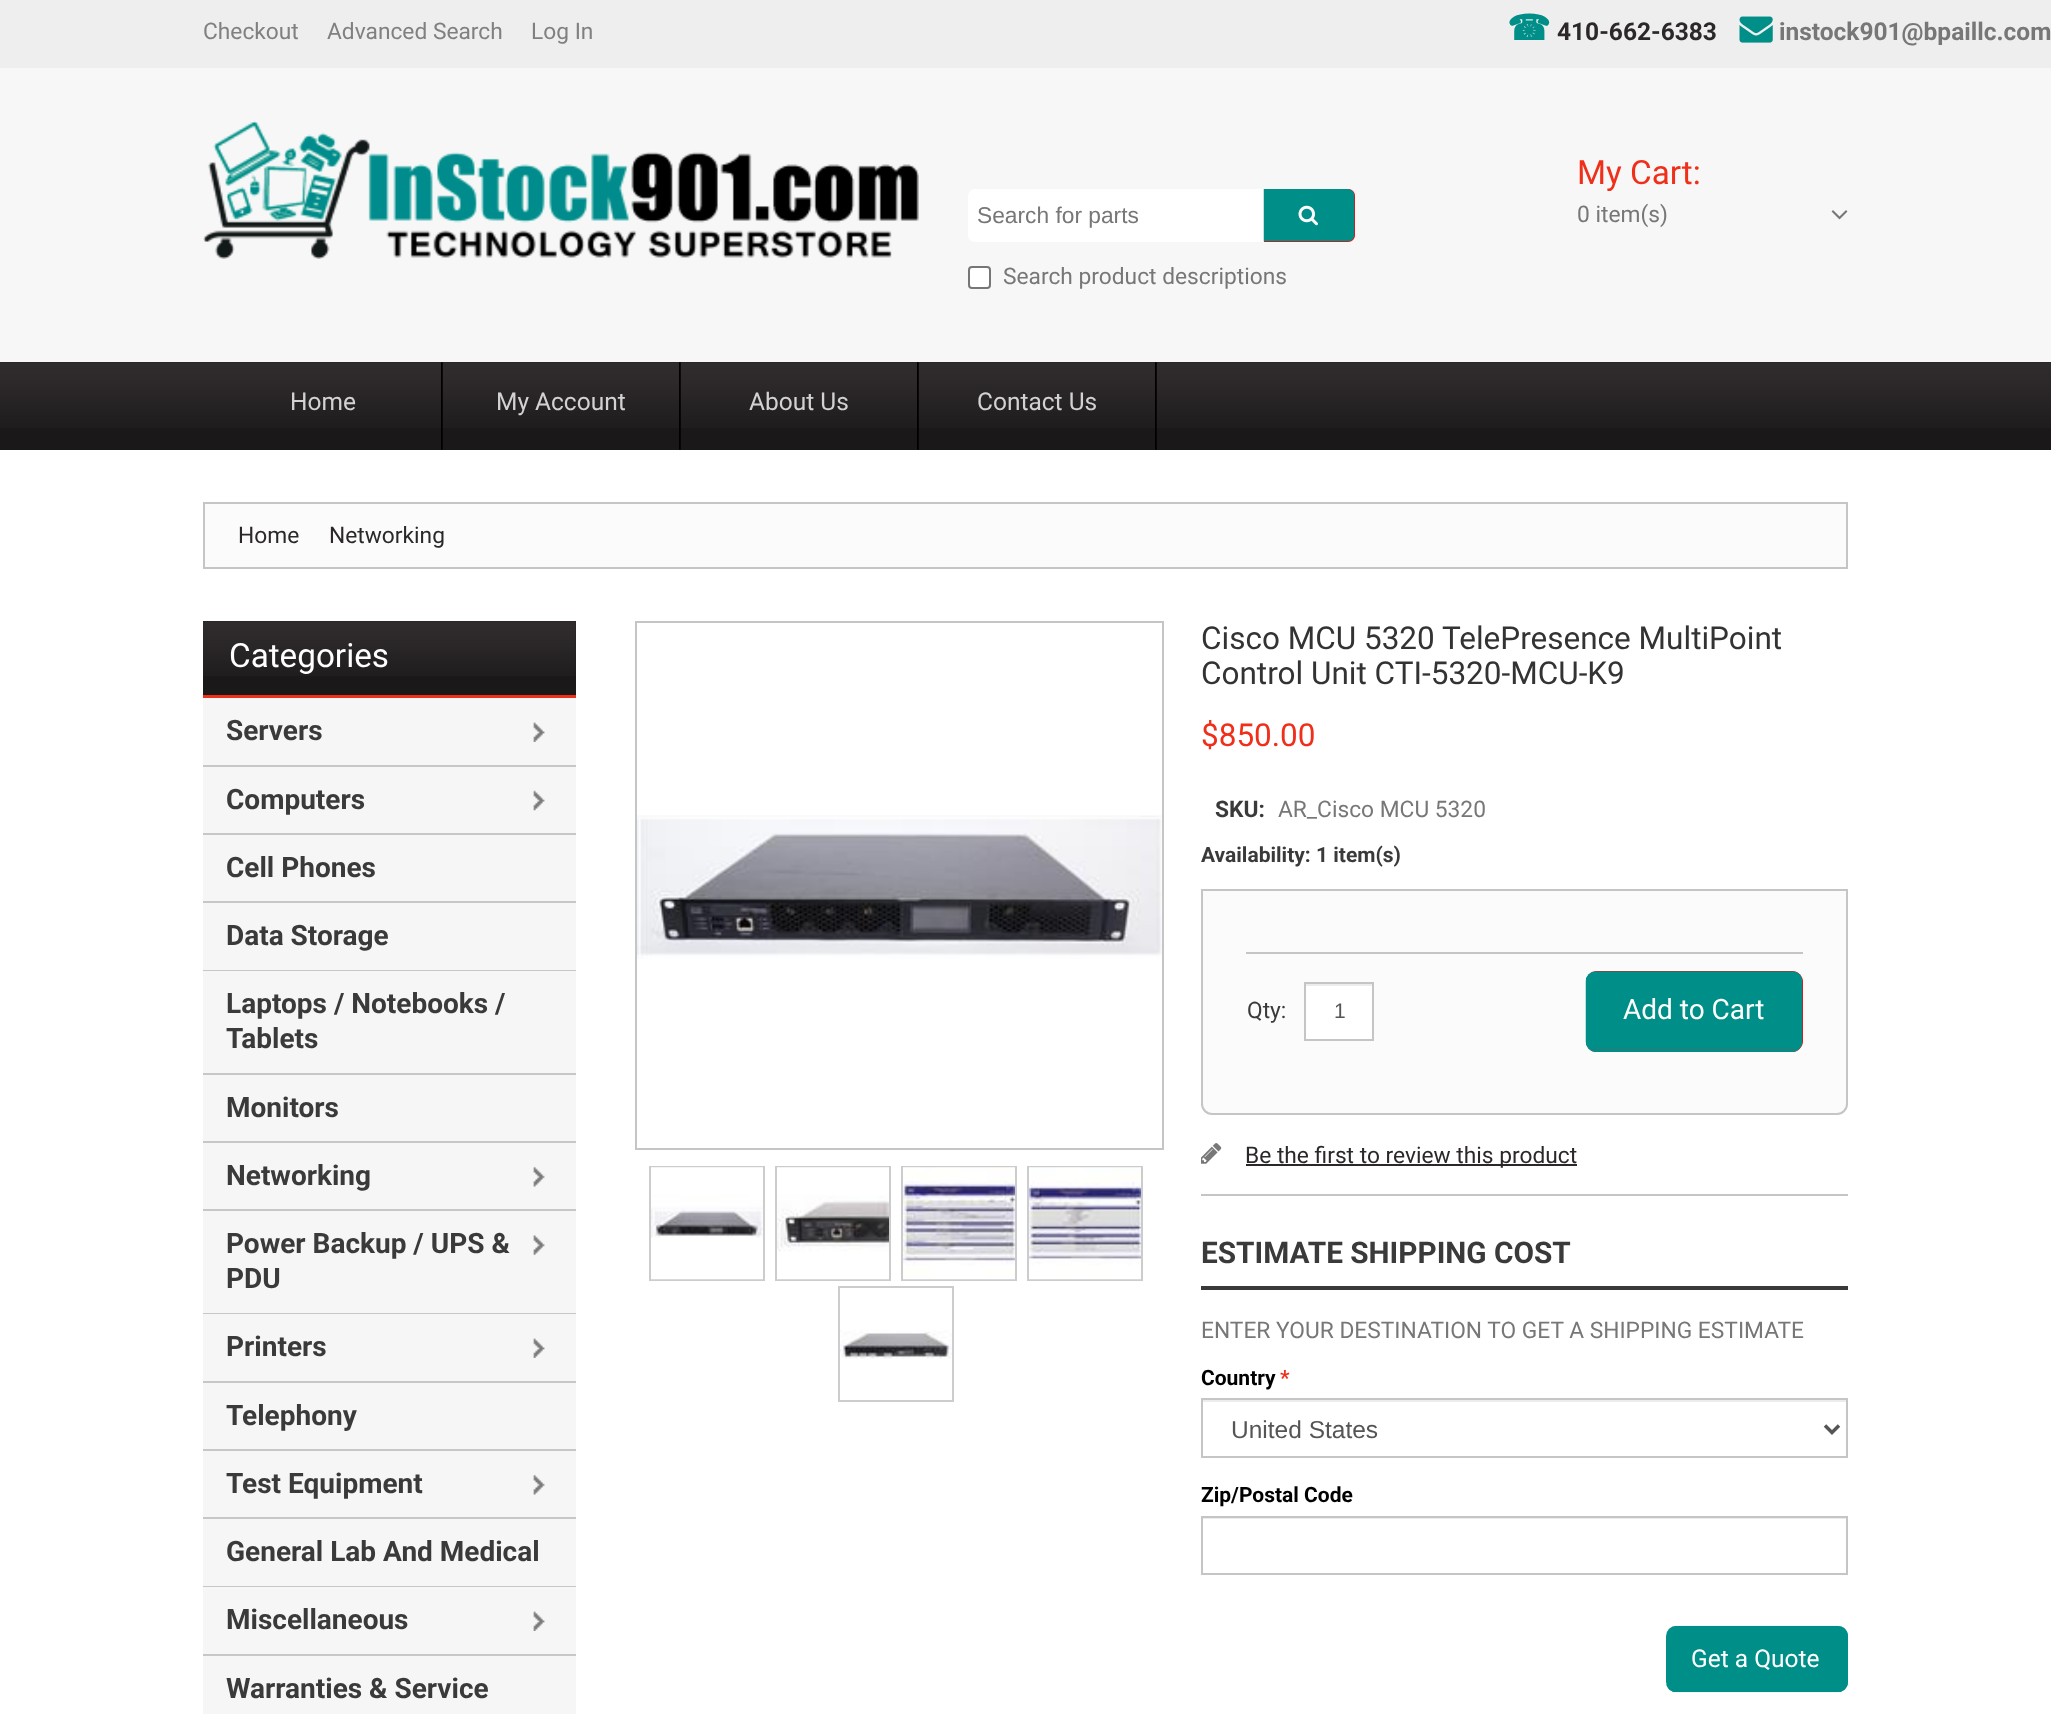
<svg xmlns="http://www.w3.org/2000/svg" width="2051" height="1714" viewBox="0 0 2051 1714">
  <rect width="100%" height="100%" fill="rgb(255,255,255)"/>
  <rect x="0" y="68" width="2051" height="294" fill="rgb(247,247,247)"/>
  <rect x="0" y="0" width="2051" height="68" fill="rgb(238,238,238)"/>
  <g font-family="Roboto" font-size="22.75" fill="rgb(128,128,128)">
    <text x="203" y="39">Checkout</text>
    <text x="327" y="39">Advanced Search</text>
    <text x="531" y="39">Log In</text>
  </g>
  <image x="203" y="120" width="716" height="139" href="pic1.png"/>
  <text x="1577" y="184" font-family="Roboto" font-size="33.25" fill="rgb(240,47,26)">My Cart:</text>
  <text x="1577" y="222" font-family="Roboto" font-size="22.75" fill="rgb(119,119,119)">0 item(s)</text>
  <image x="1831" y="210" width="17" height="10" href="pic2.png"/>
  <rect x="968" y="189" width="385" height="53" rx="7" fill="rgb(255,255,255)"/>
  <text x="977" y="223" font-family="Liberation Sans" font-size="22.75" fill="rgb(119,119,119)">Search for parts</text>
  <path d="M1264 189H1348C1352 189 1355 192 1355 196V235C1355 239 1352 242 1348 242H1264Z" fill="rgb(255,0,0)"/>
  <image x="1263" y="189" width="92" height="53" href="pic3.png"/>
  <image x="1298" y="205" width="20" height="21" href="pic4.png"/>
  <rect x="969" y="267" width="21" height="21" rx="3" fill="rgb(255,255,255)" stroke="rgb(118,118,118)" stroke-width="2"/>
  <text x="1003" y="284" font-family="Roboto" font-size="22.75" fill="rgb(119,119,119)">Search product descriptions</text>
  <text x="1507" y="40" font-family="DejaVu Sans" font-size="35" font-weight="bold" fill="rgb(0,143,136)">☎</text>
  <text x="1557" y="40" font-family="Roboto" font-size="24.5" font-weight="bold" fill="rgb(44,40,42)">410-662-6383</text>
  <image x="1739" y="16" width="34" height="27" href="pic5.png"/>
  <text x="1779" y="40" font-family="Roboto" font-size="24.5" font-weight="bold" fill="rgb(119,119,119)">instock901@bpaillc.com</text>
  <rect x="0" y="362" width="2051" height="88" fill="rgb(27,24,26)"/>
  <image x="0" y="362" width="2051" height="66" href="pic6.png"/>
  <image x="441" y="362" width="2" height="88" href="pic7.png"/>
  <text x="290" y="410" font-family="Roboto" font-size="24.5" fill="rgb(210,210,210)">Home</text>
  <image x="679" y="362" width="2" height="88" href="pic7.png"/>
  <text x="496" y="410" font-family="Roboto" font-size="24.5" fill="rgb(210,210,210)">My Account</text>
  <image x="917" y="362" width="2" height="88" href="pic7.png"/>
  <text x="749" y="410" font-family="Roboto" font-size="24.5" fill="rgb(210,210,210)">About Us</text>
  <image x="1155" y="362" width="2" height="88" href="pic7.png"/>
  <text x="977" y="410" font-family="Roboto" font-size="24.5" fill="rgb(210,210,210)">Contact Us</text>
  <rect x="204" y="503" width="1643" height="65" fill="rgb(251,251,251)" stroke="rgb(198,197,197)" stroke-width="2"/>
  <g font-family="Roboto" font-size="22.75" fill="rgb(44,40,42)">
    <text x="238" y="543">Home</text>
    <text x="329" y="543">Networking</text>
  </g>
  <rect x="203" y="621" width="373" height="74" fill="rgb(27,24,26)"/>
  <image x="203" y="621" width="373" height="55" href="pic8.png"/>
  <rect x="203" y="695" width="373" height="3" fill="rgb(240,47,26)"/>
  <text x="229" y="667" font-family="Roboto" font-size="33.25" fill="rgb(255,255,255)">Categories</text>
  <rect x="203" y="765" width="373" height="2" fill="rgb(199,199,199)"/>
  <rect x="203" y="698" width="373" height="67" fill="rgb(246,246,246)"/>
  <text x="226" y="740" font-family="Roboto" font-size="28" font-weight="bold" fill="rgb(58,58,58)">Servers</text>
  <image x="533" y="722" width="12" height="20" href="pic9.png"/>
  <rect x="203" y="833" width="373" height="2" fill="rgb(199,199,199)"/>
  <rect x="203" y="767" width="373" height="66" fill="rgb(246,246,246)"/>
  <text x="226" y="809" font-family="Roboto" font-size="28" font-weight="bold" fill="rgb(58,58,58)">Computers</text>
  <image x="533" y="790" width="12" height="21" href="pic10.png"/>
  <rect x="203" y="901" width="373" height="2" fill="rgb(199,199,199)"/>
  <rect x="203" y="835" width="373" height="66" fill="rgb(246,246,246)"/>
  <text x="226" y="877" font-family="Roboto" font-size="28" font-weight="bold" fill="rgb(58,58,58)">Cell Phones</text>
  <rect x="203" y="970" width="373" height="1" fill="rgb(199,199,199)"/>
  <rect x="203" y="903" width="373" height="67" fill="rgb(246,246,246)"/>
  <text x="226" y="945" font-family="Roboto" font-size="28" font-weight="bold" fill="rgb(58,58,58)">Data Storage</text>
  <rect x="203" y="1073" width="373" height="2" fill="rgb(199,199,199)"/>
  <rect x="203" y="971" width="373" height="102" fill="rgb(246,246,246)"/>
  <g font-family="Roboto" font-size="28" font-weight="bold" fill="rgb(58,58,58)">
    <text>
      <tspan x="226" y="1013">Laptops / Notebooks /</tspan>
      <tspan x="226" y="1048">Tablets</tspan>
    </text>
  </g>
  <rect x="203" y="1141" width="373" height="2" fill="rgb(199,199,199)"/>
  <rect x="203" y="1075" width="373" height="66" fill="rgb(246,246,246)"/>
  <text x="226" y="1117" font-family="Roboto" font-size="28" font-weight="bold" fill="rgb(58,58,58)">Monitors</text>
  <rect x="203" y="1209" width="373" height="2" fill="rgb(199,199,199)"/>
  <rect x="203" y="1143" width="373" height="66" fill="rgb(246,246,246)"/>
  <text x="226" y="1185" font-family="Roboto" font-size="28" font-weight="bold" fill="rgb(58,58,58)">Networking</text>
  <image x="533" y="1166" width="12" height="21" href="pic11.png"/>
  <rect x="203" y="1313" width="373" height="1" fill="rgb(199,199,199)"/>
  <rect x="203" y="1211" width="373" height="102" fill="rgb(246,246,246)"/>
  <g font-family="Roboto" font-size="28" font-weight="bold" fill="rgb(58,58,58)">
    <text>
      <tspan x="226" y="1253">Power Backup / UPS &amp;</tspan>
      <tspan x="226" y="1288">PDU</tspan>
    </text>
  </g>
  <image x="533" y="1235" width="12" height="20" href="pic12.png"/>
  <rect x="203" y="1381" width="373" height="2" fill="rgb(199,199,199)"/>
  <rect x="203" y="1314" width="373" height="67" fill="rgb(246,246,246)"/>
  <text x="226" y="1356" font-family="Roboto" font-size="28" font-weight="bold" fill="rgb(58,58,58)">Printers</text>
  <image x="533" y="1338" width="12" height="20" href="pic9.png"/>
  <rect x="203" y="1449" width="373" height="2" fill="rgb(199,199,199)"/>
  <rect x="203" y="1383" width="373" height="66" fill="rgb(246,246,246)"/>
  <text x="226" y="1425" font-family="Roboto" font-size="28" font-weight="bold" fill="rgb(58,58,58)">Telephony</text>
  <rect x="203" y="1517" width="373" height="2" fill="rgb(199,199,199)"/>
  <rect x="203" y="1451" width="373" height="66" fill="rgb(246,246,246)"/>
  <text x="226" y="1493" font-family="Roboto" font-size="28" font-weight="bold" fill="rgb(58,58,58)">Test Equipment</text>
  <image x="533" y="1474" width="12" height="21" href="pic11.png"/>
  <rect x="203" y="1586" width="373" height="1" fill="rgb(199,199,199)"/>
  <rect x="203" y="1519" width="373" height="67" fill="rgb(246,246,246)"/>
  <text x="226" y="1561" font-family="Roboto" font-size="28" font-weight="bold" fill="rgb(58,58,58)">General Lab And Medical</text>
  <rect x="203" y="1654" width="373" height="2" fill="rgb(199,199,199)"/>
  <rect x="203" y="1587" width="373" height="67" fill="rgb(246,246,246)"/>
  <text x="226" y="1629" font-family="Roboto" font-size="28" font-weight="bold" fill="rgb(58,58,58)">Miscellaneous</text>
  <image x="533" y="1611" width="12" height="20" href="pic9.png"/>
  <rect x="203" y="1656" width="373" height="58" fill="rgb(246,246,246)"/>
  <text x="226" y="1698" font-family="Roboto" font-size="28" font-weight="bold" fill="rgb(58,58,58)">Warranties &amp; Service</text>
  <rect x="636" y="622" width="527" height="527" fill="none" stroke="rgb(198,197,197)" stroke-width="2"/>
  <image x="637" y="815" width="525" height="144" href="pic13.png"/>
  <rect x="650" y="1167" width="114" height="113" fill="none" stroke="rgb(204,204,204)" stroke-width="2"/>
  <rect x="776" y="1167" width="114" height="113" fill="none" stroke="rgb(204,204,204)" stroke-width="2"/>
  <rect x="902" y="1167" width="114" height="113" fill="none" stroke="rgb(204,204,204)" stroke-width="2"/>
  <rect x="1028" y="1167" width="114" height="113" fill="none" stroke="rgb(204,204,204)" stroke-width="2"/>
  <image x="651" y="1167" width="112" height="113" href="pic14.png"/>
  <image x="777" y="1167" width="112" height="113" href="pic15.png"/>
  <image x="903" y="1167" width="112" height="113" href="pic16.png"/>
  <image x="1029" y="1167" width="112" height="113" href="pic17.png"/>
  <rect x="839" y="1287" width="114" height="114" fill="none" stroke="rgb(204,204,204)" stroke-width="2"/>
  <image x="840" y="1330" width="112" height="29" href="pic18.png"/>
  <g font-family="Roboto" font-size="31.5" fill="rgb(51,51,51)">
    <text>
      <tspan x="1201" y="649">Cisco MCU 5320 TelePresence MultiPoint</tspan>
      <tspan x="1201" y="684">Control Unit CTI-5320-MCU-K9</tspan>
    </text>
  </g>
  <text x="1201" y="746" font-family="Roboto" font-size="31.5" fill="rgb(240,47,26)">$850.00</text>
  <text x="1215" y="817" font-family="Roboto" font-size="22.75" font-weight="bold" fill="rgb(58,58,58)">SKU:</text>
  <text x="1278" y="817" font-family="Roboto" font-size="22.75" fill="rgb(119,119,119)">AR_Cisco MCU 5320</text>
  <text x="1201" y="862" font-family="Roboto" font-size="21" font-weight="bold" fill="rgb(58,58,58)">Availability: 1 item(s)</text>
  <path d="M1202 890H1847V1104C1847 1109.5 1842.5 1114 1837 1114H1212C1206.5 1114 1202 1109.5 1202 1104Z" fill="rgb(251,251,251)" stroke="rgb(198,197,197)" stroke-width="2"/>
  <rect x="1246" y="952" width="557" height="2" fill="rgb(198,197,197)"/>
  <text x="1247" y="1018" font-family="Roboto" font-size="22.75" fill="rgb(58,58,58)">Qty:</text>
  <rect x="1306" y="986" width="66" height="53" fill="rgb(255,255,255)"/>
  <rect x="1306" y="984" width="66" height="2" fill="rgb(236,236,236)"/>
  <rect x="1305" y="983" width="68" height="57" fill="none" stroke="rgb(198,197,197)" stroke-width="2"/>
  <text x="1334" y="1018" font-family="Liberation Sans" font-size="21" fill="rgb(85,85,85)">1</text>
  <rect x="1586" y="971" width="217" height="81" rx="11" fill="rgb(255,0,0)"/>
  <image x="1585" y="971" width="218" height="81" href="pic19.png"/>
  <path d="M1596 971H1792C1798 971 1802 976 1802 982V1041C1802 1047 1798 1052 1792 1052H1596C1590 1052 1586 1047 1586 1041V982C1586 976 1590 971 1596 971ZM1596 971H1792C1797 971 1801 976 1801 982V1041C1801 1046 1797 1050 1792 1050H1596C1590 1050 1586 1046 1586 1041V982C1586 976 1590 971 1596 971Z" fill="rgb(0,143,136)" fill-rule="evenodd"/>
  <text x="1623" y="1019" font-family="Roboto" font-size="28" fill="rgb(255,255,255)">Add to Cart</text>
  <rect x="1201" y="1194" width="647" height="2" fill="rgb(198,197,197)"/>
  <image x="1201" y="1143" width="21" height="21" href="pic20.png"/>
  <rect x="1246" y="1164" width="331" height="2" fill="rgb(44,40,42)"/>
  <text x="1245" y="1163" font-family="Roboto" font-size="22.75" fill="rgb(44,40,42)">Be the first to review this product</text>
  <rect x="1201" y="1286" width="647" height="4" fill="rgb(58,58,58)"/>
  <text x="1201" y="1263" font-family="Roboto" font-size="29.75" font-weight="bold" fill="rgb(58,58,58)">ESTIMATE SHIPPING COST</text>
  <text x="1201" y="1338" font-family="Roboto" font-size="22.75" fill="rgb(119,119,119)">ENTER YOUR DESTINATION TO GET A SHIPPING ESTIMATE</text>
  <text x="1201" y="1385" font-family="Roboto" font-size="21" font-weight="bold" fill="rgb(0,0,0)">Country</text>
  <text x="1280" y="1385" font-family="Roboto" font-size="21" font-weight="bold" fill="rgb(240,47,26)">*</text>
  <rect x="1202" y="1400" width="644" height="2" fill="rgb(236,236,236)"/>
  <rect x="1202" y="1399" width="645" height="58" fill="none" stroke="rgb(198,197,197)" stroke-width="2"/>
  <path d="M1825 1425.5L1832 1432.5L1839 1425.5" fill="none" stroke="rgb(85,85,85)" stroke-width="3.5"/>
  <text x="1231" y="1438" font-family="Liberation Sans" font-size="24.5" fill="rgb(85,85,85)">United States</text>
  <text x="1201" y="1502" font-family="Roboto" font-size="21" font-weight="bold" fill="rgb(0,0,0)">Zip/Postal Code</text>
  <rect x="1202" y="1518" width="644" height="1" fill="rgb(236,236,236)"/>
  <rect x="1202" y="1517" width="645" height="57" fill="none" stroke="rgb(198,197,197)" stroke-width="2"/>
  <image x="1666" y="1625" width="182" height="68" href="pic21.png"/>
  <path d="M1676 1626H1838C1843 1626 1848 1630 1848 1636V1682C1848 1688 1843 1692 1838 1692H1676C1671 1692 1666 1688 1666 1682V1636C1666 1630 1671 1626 1676 1626ZM1676 1626H1838C1842 1626 1846 1630 1846 1636V1682C1846 1687 1842 1690 1838 1690H1676C1671 1690 1666 1687 1666 1682V1636C1666 1630 1671 1626 1676 1626Z" fill="rgb(0,143,136)" fill-rule="evenodd"/>
  <text x="1691" y="1667" font-family="Roboto" font-size="24.5" fill="rgb(255,255,255)">Get a Quote</text>
</svg>
